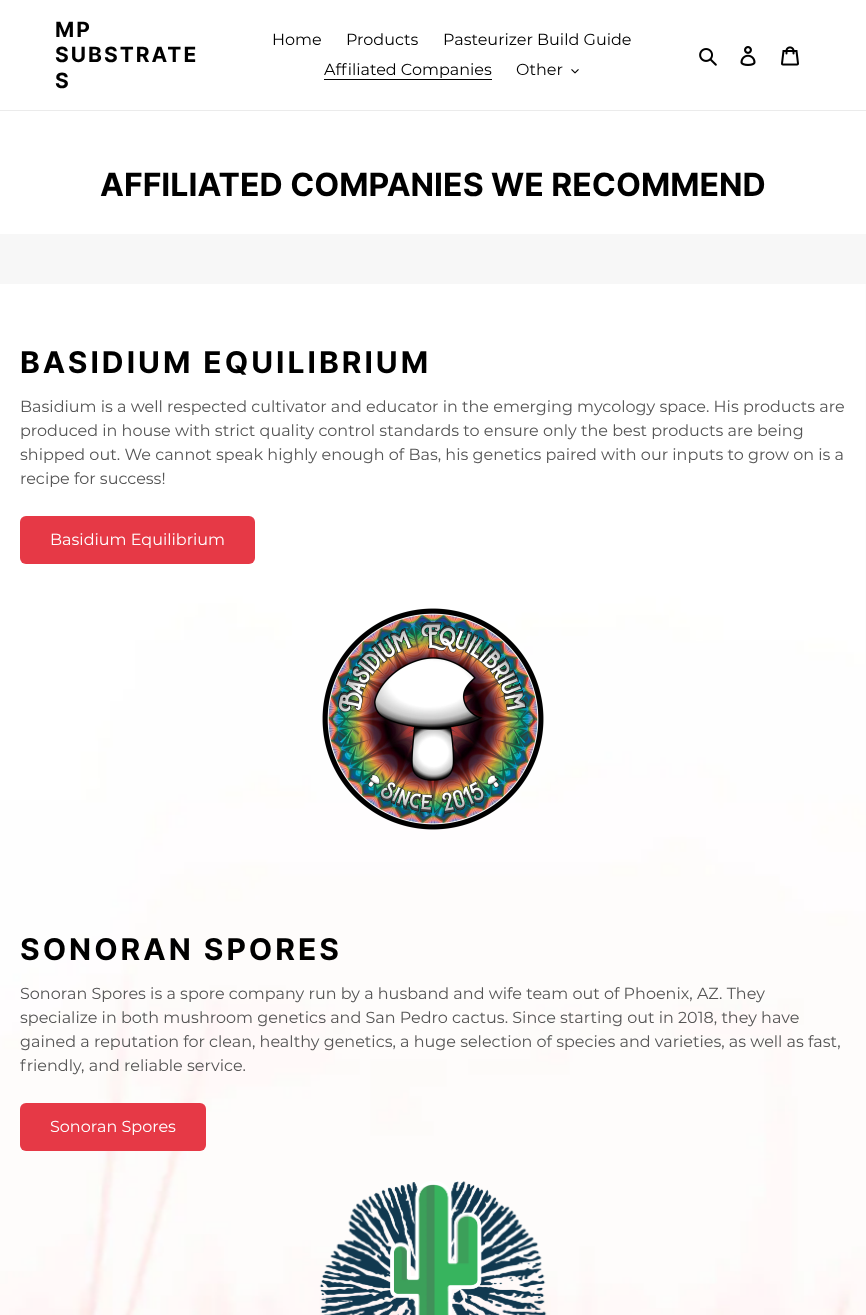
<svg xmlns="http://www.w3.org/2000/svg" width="866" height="1315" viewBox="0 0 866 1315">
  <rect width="100%" height="100%" fill="rgb(255,255,255)"/>
  <rect x="0" y="110" width="866" height="1" fill="rgb(235,235,235)"/>
  <g font-family="Inter" font-size="21" font-weight="bold" letter-spacing="2" fill="rgb(0,0,0)">
    <text>
      <tspan x="55" y="37">MP</tspan>
      <tspan x="55" y="62">SUBSTRATE</tspan>
      <tspan x="55" y="88">S</tspan>
    </text>
  </g>
  <g font-family="Montserrat" font-size="16" fill="rgb(0,0,0)">
    <text x="272" y="45">Home</text>
    <text x="346" y="45">Products</text>
    <text x="443" y="45">Pasteurizer Build Guide</text>
    <text x="324" y="75">Affiliated Companies</text>
  </g>
  <rect x="324" y="79" width="168" height="1" fill="rgb(0,0,0)"/>
  <text x="516" y="75" font-family="Montserrat" font-size="16" fill="rgb(0,0,0)">Other</text>
  <image x="571" y="69" width="8" height="5" href="pic1.png"/>
  <image x="699" y="48" width="18" height="18" href="pic2.png"/>
  <image x="740" y="46" width="16" height="20" href="pic3.png"/>
  <image x="781" y="46" width="18" height="20" href="pic4.png"/>
  <text x="100" y="196" font-family="Inter" font-size="32" font-weight="bold" fill="rgb(0,0,0)">AFFILIATED COMPANIES WE RECOMMEND</text>
  <rect x="0" y="234" width="866" height="1081" fill="rgb(247,247,247)"/>
  <image x="0" y="284" width="866" height="1031" href="pic5.png"/>
  <text x="20" y="373" font-family="Inter" font-size="30" font-weight="bold" letter-spacing="3" fill="rgb(0,0,0)">BASIDIUM EQUILIBRIUM</text>
  <g font-family="Montserrat" font-size="16" fill="rgb(85,85,85)">
    <text>
      <tspan x="20" y="412">Basidium is a well respected cultivator and educator in the emerging mycology space. His products are</tspan>
      <tspan x="20" y="436">produced in house with strict quality control standards to ensure only the best products are being</tspan>
      <tspan x="20" y="460">shipped out. We cannot speak highly enough of Bas, his genetics paired with our inputs to grow on is a</tspan>
      <tspan x="20" y="484">recipe for success!</tspan>
    </text>
  </g>
  <rect x="20" y="516" width="235" height="48" rx="6" fill="rgb(230,57,70)"/>
  <text x="50" y="545" font-family="Montserrat" font-size="16" fill="rgb(255,255,255)">Basidium Equilibrium</text>
  <image x="322" y="608" width="222" height="222" href="pic6.png"/>
  <text x="20" y="960" font-family="Inter" font-size="30" font-weight="bold" letter-spacing="3" fill="rgb(0,0,0)">SONORAN SPORES</text>
  <g font-family="Montserrat" font-size="16" fill="rgb(85,85,85)">
    <text>
      <tspan x="20" y="999">Sonoran Spores is a spore company run by a husband and wife team out of Phoenix, AZ. They</tspan>
      <tspan x="20" y="1023">specialize in both mushroom genetics and San Pedro cactus. Since starting out in 2018, they have</tspan>
      <tspan x="20" y="1047">gained a reputation for clean, healthy genetics, a huge selection of species and varieties, as well as fast,</tspan>
      <tspan x="20" y="1071">friendly, and reliable service.</tspan>
    </text>
  </g>
  <rect x="20" y="1103" width="186" height="48" rx="6" fill="rgb(230,57,70)"/>
  <text x="50" y="1132" font-family="Montserrat" font-size="16" fill="rgb(255,255,255)">Sonoran Spores</text>
  <image x="319" y="1181" width="228" height="134" href="pic7.png"/>
</svg>
